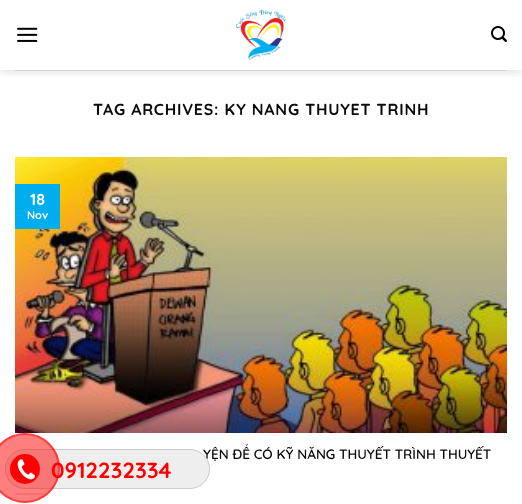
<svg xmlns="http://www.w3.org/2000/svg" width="522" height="504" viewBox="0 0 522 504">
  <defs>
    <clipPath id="clip1"><rect x="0" y="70" width="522" height="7"/></clipPath>
    <clipPath id="clip2"><rect x="15" y="444" width="492" height="43"/></clipPath>
  </defs>
  <rect width="100%" height="100%" fill="rgb(255,255,255)"/>
  <g clip-path="url(#clip1)">
    <rect x="1" y="1" width="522" height="70" fill="rgba(0,0,0,0.15)" filter="blur(5px)"/>
  </g>
  <image x="17" y="27" width="21" height="15" href="pic1.png"/>
  <image x="236" y="10" width="50" height="50" href="pic2.png"/>
  <image x="491" y="26" width="16" height="16" href="pic3.png"/>
  <rect x="15" y="70" width="492" height="1" fill="rgb(212,212,212)"/>
  <text x="93" y="115" font-family="Quicksand" font-size="16" font-weight="bold" letter-spacing="0.8" fill="rgb(10,10,10)">TAG ARCHIVES: KY NANG THUYET TRINH</text>
  <image x="15" y="157" width="492" height="276" href="pic4.png"/>
  <rect x="15" y="184" width="45" height="45" fill="rgb(0,173,239)"/>
  <text x="30" y="205" font-family="Quicksand" font-size="16" font-weight="bold" fill="rgb(255,255,255)">18</text>
  <text x="27" y="219" font-family="Quicksand" font-size="11" font-weight="bold" fill="rgb(255,255,255)">Nov</text>
  <g clip-path="url(#clip2)">
    <text x="203" y="459" font-family="Quicksand" font-size="13.6" font-weight="600" fill="rgb(10,10,10)">YỆN ĐỂ CÓ KỸ NĂNG THUYẾT TRÌNH THUYẾT</text>
  </g>
  <rect x="15" y="493" width="30" height="2" fill="rgb(230,230,230)"/>
  <rect x="5.5" y="449.5" width="204" height="39" rx="19.5" fill="rgb(238,238,238)" stroke="rgb(204,204,204)"/>
  <text x="51" y="478" font-family="Quicksand" font-size="22" font-weight="bold" fill="rgb(255,0,0)">0912232334</text>
  <circle cx="25" cy="468" r="35" fill="rgba(255,0,0,0.5)"/>
  <circle cx="25" cy="468" r="34" fill="none" stroke="rgba(255,0,0,0.5)" stroke-width="2"/>
  <circle cx="25" cy="469" r="15" fill="rgb(255,0,0)"/>
  <image x="17" y="459" width="18" height="21" href="pic5.png"/>
</svg>
